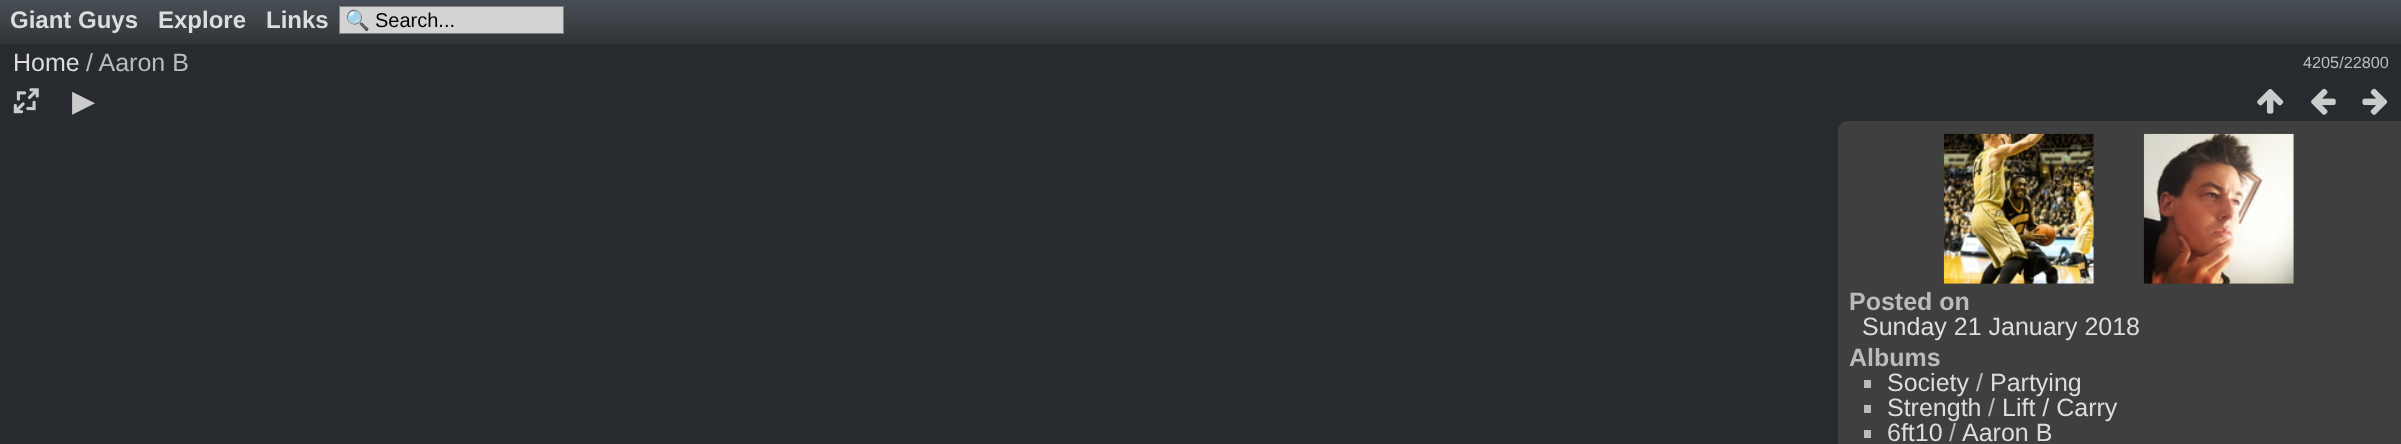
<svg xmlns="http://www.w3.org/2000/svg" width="2401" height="444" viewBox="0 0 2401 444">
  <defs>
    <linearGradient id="g1" gradientUnits="userSpaceOnUse" x1="1201" y1="0" x2="1201" y2="44"><stop offset="0" stop-color="rgb(72,78,85)"/><stop offset="0.6" stop-color="rgb(58,63,68)"/><stop offset="1" stop-color="rgb(49,53,57)"/></linearGradient>
  </defs>
  <rect width="100%" height="100%" fill="rgb(39,43,48)"/>
  <rect x="0" y="0" width="2401" height="44" fill="url(#g1)"/>
  <g font-family="Liberation Sans" font-size="24" font-weight="bold" fill="rgb(221,221,221)">
    <text x="10" y="28">Giant Guys</text>
    <text x="158" y="28">Explore</text>
    <text x="266" y="28">Links</text>
  </g>
  <rect x="339.5" y="6.5" width="224" height="27" fill="rgb(211,211,211)" stroke="rgb(128,128,128)"/>
  <text x="345" y="27" font-family="Noto Color Emoji" font-size="20" fill="rgb(0,0,0)">🔍</text>
  <text x="375" y="27" font-family="Liberation Sans" font-size="20" fill="rgb(0,0,0)">Search...</text>
  <text x="13" y="71" font-family="Liberation Sans" font-size="25" fill="rgb(221,221,221)">Home</text>
  <text x="86" y="71" font-family="Liberation Sans" font-size="25" fill="rgb(187,187,187)">/ Aaron B</text>
  <text x="2303" y="68" font-family="Liberation Sans" font-size="16.25" fill="rgb(187,187,187)">4205/22800</text>
  <image x="13" y="88" width="26" height="26" href="pic1.png"/>
  <text x="72" y="111" font-family="DejaVu Sans" font-size="30" fill="rgb(203,203,204)">▶</text>
  <image x="2257" y="89" width="27" height="25" href="pic2.png"/>
  <image x="2311" y="88" width="25" height="27" href="pic3.png"/>
  <image x="2362" y="88" width="26" height="27" href="pic4.png"/>
  <path d="M1848 121H2401V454H1848C1842.5 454 1838 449.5 1838 444V131C1838 125.5 1842.5 121 1848 121Z" fill="rgb(63,63,63)"/>
  <image x="1943" y="133" width="151" height="151" href="pic5.png"/>
  <image x="2143" y="133" width="151" height="151" href="pic6.png"/>
  <text x="1849" y="310" font-family="Liberation Sans" font-size="25" font-weight="bold" fill="rgb(187,187,187)">Posted on</text>
  <text x="1862" y="335" font-family="Liberation Sans" font-size="25" fill="rgb(221,221,221)">Sunday 21 January 2018</text>
  <text x="1849" y="366" font-family="Liberation Sans" font-size="25" font-weight="bold" fill="rgb(187,187,187)">Albums</text>
  <rect x="1864" y="380" width="7" height="8" fill="rgb(187,187,187)"/>
  <text x="1887" y="391" font-family="Liberation Sans" font-size="25" fill="rgb(221,221,221)">Society</text>
  <text x="1976" y="391" font-family="Liberation Sans" font-size="25" fill="rgb(187,187,187)">/</text>
  <text x="1990" y="391" font-family="Liberation Sans" font-size="25" fill="rgb(221,221,221)">Partying</text>
  <rect x="1864" y="405" width="7" height="8" fill="rgb(187,187,187)"/>
  <text x="1887" y="416" font-family="Liberation Sans" font-size="25" fill="rgb(221,221,221)">Strength</text>
  <text x="1988" y="416" font-family="Liberation Sans" font-size="25" fill="rgb(187,187,187)">/</text>
  <text x="2002" y="416" font-family="Liberation Sans" font-size="25" fill="rgb(221,221,221)">Lift / Carry</text>
  <rect x="1864" y="430" width="7" height="8" fill="rgb(187,187,187)"/>
  <text x="1887" y="441" font-family="Liberation Sans" font-size="25" fill="rgb(221,221,221)">6ft10</text>
  <text x="1949" y="441" font-family="Liberation Sans" font-size="25" fill="rgb(187,187,187)">/</text>
  <text x="1962" y="441" font-family="Liberation Sans" font-size="25" fill="rgb(221,221,221)">Aaron B</text>
</svg>
